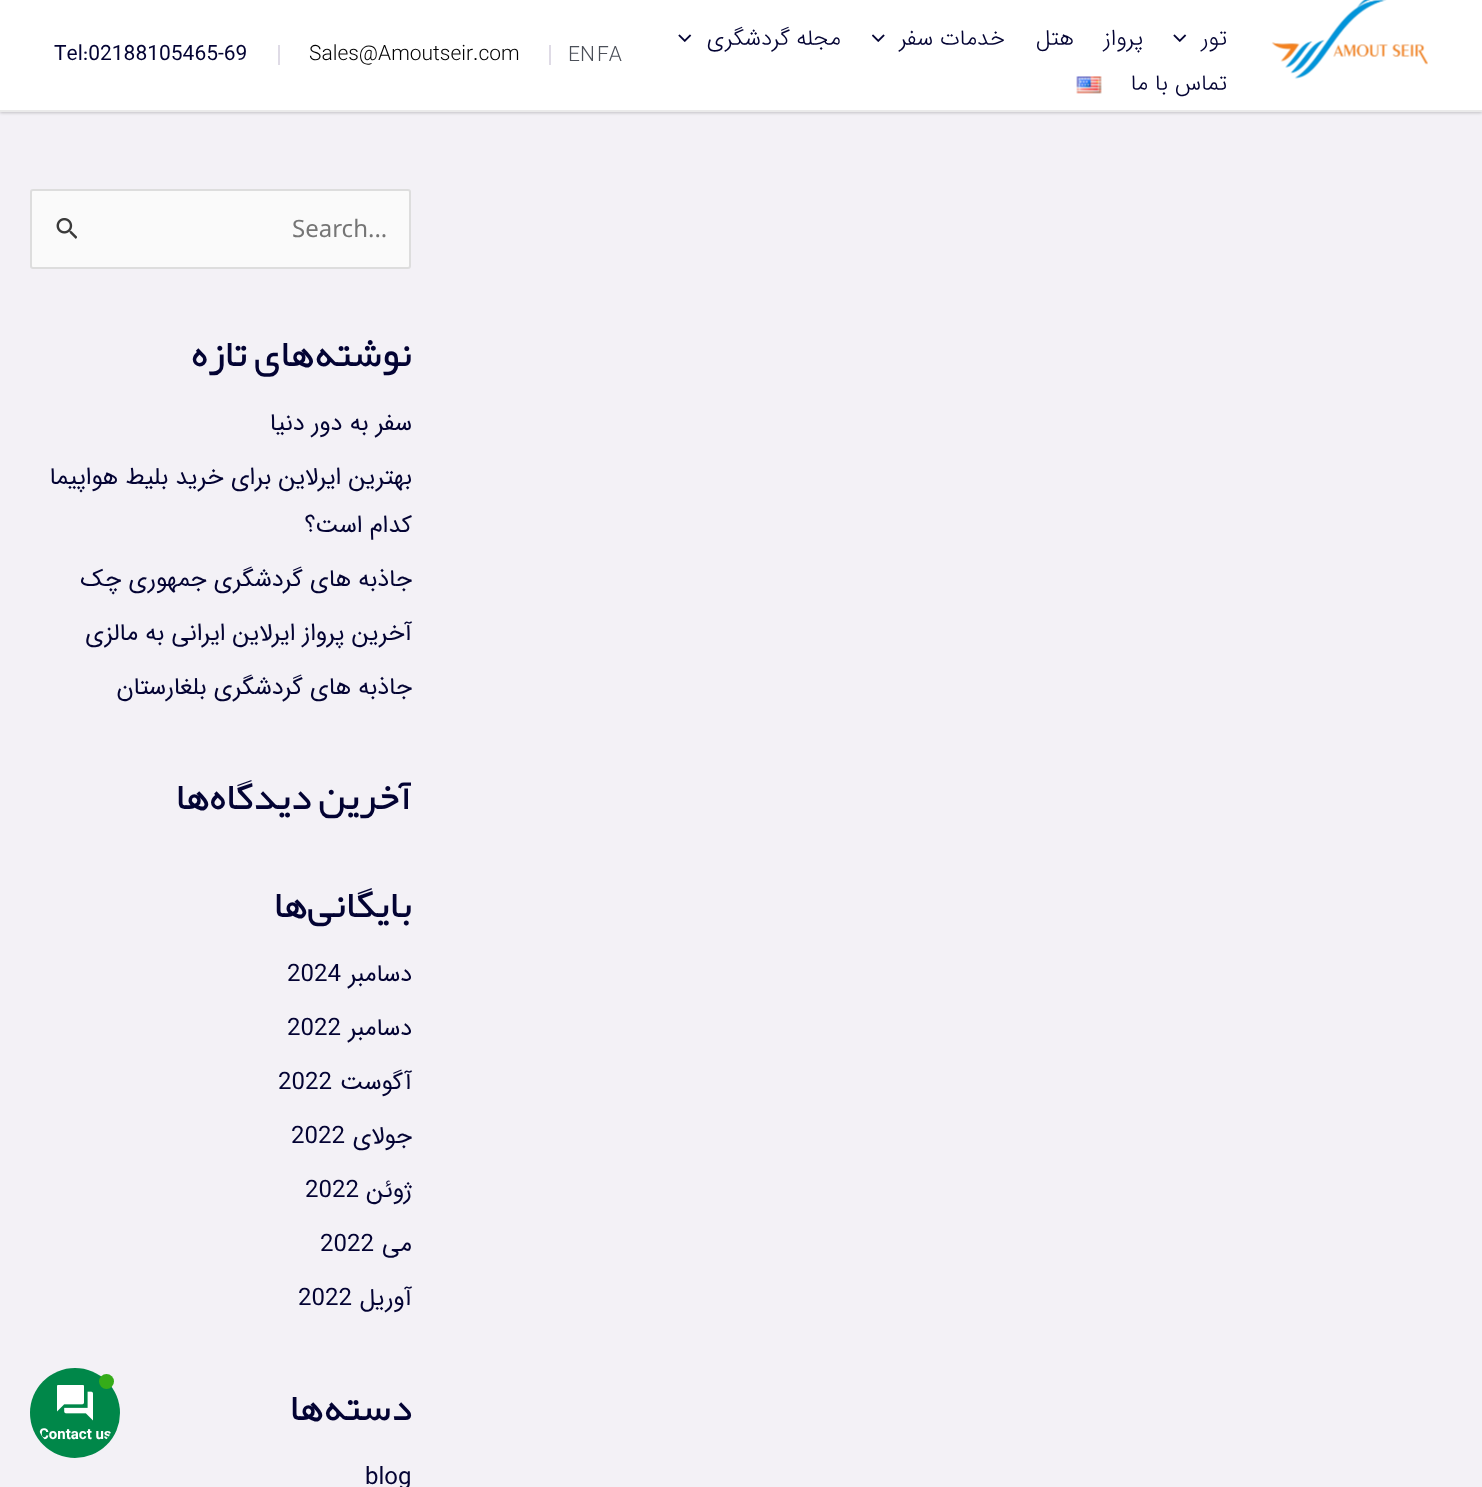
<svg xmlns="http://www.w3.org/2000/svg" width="1482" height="1487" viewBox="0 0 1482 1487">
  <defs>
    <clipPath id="clip1"><rect x="30" y="0" width="381" height="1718"/></clipPath>
    <clipPath id="clip2"><rect x="35" y="1373" width="81" height="81" rx="40.5"/></clipPath>
  </defs>
  <rect width="100%" height="100%" fill="rgb(243,241,246)"/>
  <rect x="0" y="2" width="1482" height="111" fill="rgba(0,0,0,0.2)" filter="blur(1.5px)"/>
  <rect x="0" y="0" width="1482" height="110" fill="rgb(255,255,255)"/>
  <rect x="0" y="110" width="1482" height="2" fill="rgb(234,234,234)"/>
  <image x="1271" y="0" width="157" height="79" href="pic1.png"/>
  <text x="1227" y="45" font-family="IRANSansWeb" font-size="22.5" font-weight="300" direction="rtl" fill="rgb(3,3,51)">تور</text>
  <image x="1173" y="34" width="14" height="8" href="pic2.png"/>
  <g font-family="IRANSansWeb" font-size="22.5" font-weight="300" direction="rtl" fill="rgb(3,3,51)">
    <text x="1143" y="45">پرواز</text>
    <text x="1074" y="45">هتل</text>
    <text x="1005" y="45">خدمات سفر</text>
  </g>
  <image x="872" y="34" width="13" height="8" href="pic3.png"/>
  <g font-family="IRANSansWeb" font-size="22.5" font-weight="300" direction="rtl" fill="rgb(3,3,51)">
    <text x="841" y="45">مجله</text>
    <text x="790" y="45">گردشگری</text>
  </g>
  <image x="678" y="34" width="14" height="8" href="pic2.png"/>
  <text x="1227" y="90" font-family="IRANSansWeb" font-size="22.5" font-weight="300" direction="rtl" fill="rgb(3,3,51)">تماس با ما</text>
  <image x="1076" y="76" width="26" height="18" href="pic4.png"/>
  <g font-family="IRANSansWeb" font-size="21" font-weight="300" fill="rgb(75,79,88)">
    <text x="597" y="61">FA</text>
    <text x="568" y="61">EN</text>
  </g>
  <rect x="549" y="45" width="2" height="20" fill="rgb(223,219,230)"/>
  <text x="309" y="60" font-family="IRANSansWeb" font-size="21" font-weight="300" fill="rgb(0,0,0)">Sales@Amoutseir.com</text>
  <rect x="278" y="45" width="2" height="20" fill="rgb(223,219,230)"/>
  <text x="54" y="60" font-family="IRANSansWeb" font-size="21" fill="rgb(3,3,51)">Tel:02188105465-69</text>
  <rect x="31" y="190" width="379" height="78" rx="2" fill="rgb(250,250,250)" stroke="rgb(221,221,221)" stroke-width="2"/>
  <text x="292" y="237" font-family="Noto Sans" font-size="24" fill="rgb(117,117,117)">Search...</text>
  <image x="56" y="218" width="21" height="21" href="pic5.png"/>
  <text x="412" y="366" font-family="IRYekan" font-size="33" direction="rtl" fill="rgb(3,3,51)">نوشته‌های تازه</text>
  <g font-family="IRANSansWeb" font-size="24" direction="rtl" fill="rgb(3,3,51)">
    <text x="412" y="430">سفر به دور دنیا</text>
    <text x="412" y="484">بهترین ایرلاین برای خرید بلیط هواپیما</text>
    <text x="412" y="532">کدام است؟</text>
    <text x="412" y="586">جاذبه های گردشگری جمهوری چک</text>
    <text x="412" y="640">آخرین پرواز ایرلاین ایرانی به مالزی</text>
    <text x="412" y="694">جاذبه های گردشگری بلغارستان</text>
  </g>
  <g clip-path="url(#clip1)">
    <text x="412" y="809" font-family="IRYekan" font-size="33" direction="rtl" fill="rgb(3,3,51)">آخرین دیدگاه‌ها</text>
  </g>
  <text x="412" y="917" font-family="IRYekan" font-size="33" direction="rtl" fill="rgb(3,3,51)">بایگانی‌ها</text>
  <text x="412" y="981" font-family="IRANSansWeb" font-size="24" direction="rtl" fill="rgb(3,3,51)">دسامبر</text>
  <text x="287" y="981" font-family="IRANSansWeb" font-size="24" fill="rgb(3,3,51)">2024</text>
  <text x="412" y="1035" font-family="IRANSansWeb" font-size="24" direction="rtl" fill="rgb(3,3,51)">دسامبر</text>
  <text x="287" y="1035" font-family="IRANSansWeb" font-size="24" fill="rgb(3,3,51)">2022</text>
  <text x="412" y="1089" font-family="IRANSansWeb" font-size="24" direction="rtl" fill="rgb(3,3,51)">آگوست</text>
  <text x="278" y="1089" font-family="IRANSansWeb" font-size="24" fill="rgb(3,3,51)">2022</text>
  <text x="412" y="1143" font-family="IRANSansWeb" font-size="24" direction="rtl" fill="rgb(3,3,51)">جولای</text>
  <text x="291" y="1143" font-family="IRANSansWeb" font-size="24" fill="rgb(3,3,51)">2022</text>
  <text x="412" y="1197" font-family="IRANSansWeb" font-size="24" direction="rtl" fill="rgb(3,3,51)">ژوئن</text>
  <text x="305" y="1197" font-family="IRANSansWeb" font-size="24" fill="rgb(3,3,51)">2022</text>
  <text x="412" y="1251" font-family="IRANSansWeb" font-size="24" direction="rtl" fill="rgb(3,3,51)">می</text>
  <text x="320" y="1251" font-family="IRANSansWeb" font-size="24" fill="rgb(3,3,51)">2022</text>
  <text x="412" y="1305" font-family="IRANSansWeb" font-size="24" direction="rtl" fill="rgb(3,3,51)">آوریل</text>
  <text x="298" y="1305" font-family="IRANSansWeb" font-size="24" fill="rgb(3,3,51)">2022</text>
  <text x="412" y="1420" font-family="IRYekan" font-size="33" direction="rtl" fill="rgb(3,3,51)">دسته‌ها</text>
  <text x="365" y="1484" font-family="IRANSansWeb" font-size="24" fill="rgb(3,3,51)">blog</text>
  <circle cx="75" cy="1413" r="45" fill="rgb(0,135,73)"/>
  <circle cx="106.5" cy="1381.5" r="7.5" fill="rgb(53,172,25)"/>
  <image x="57" y="1385" width="36" height="36" href="pic6.png"/>
  <g clip-path="url(#clip2)">
    <text x="39" y="1439" font-family="Roboto" font-size="15" font-weight="bold" fill="rgb(255,255,255)">Contact us</text>
  </g>
</svg>
